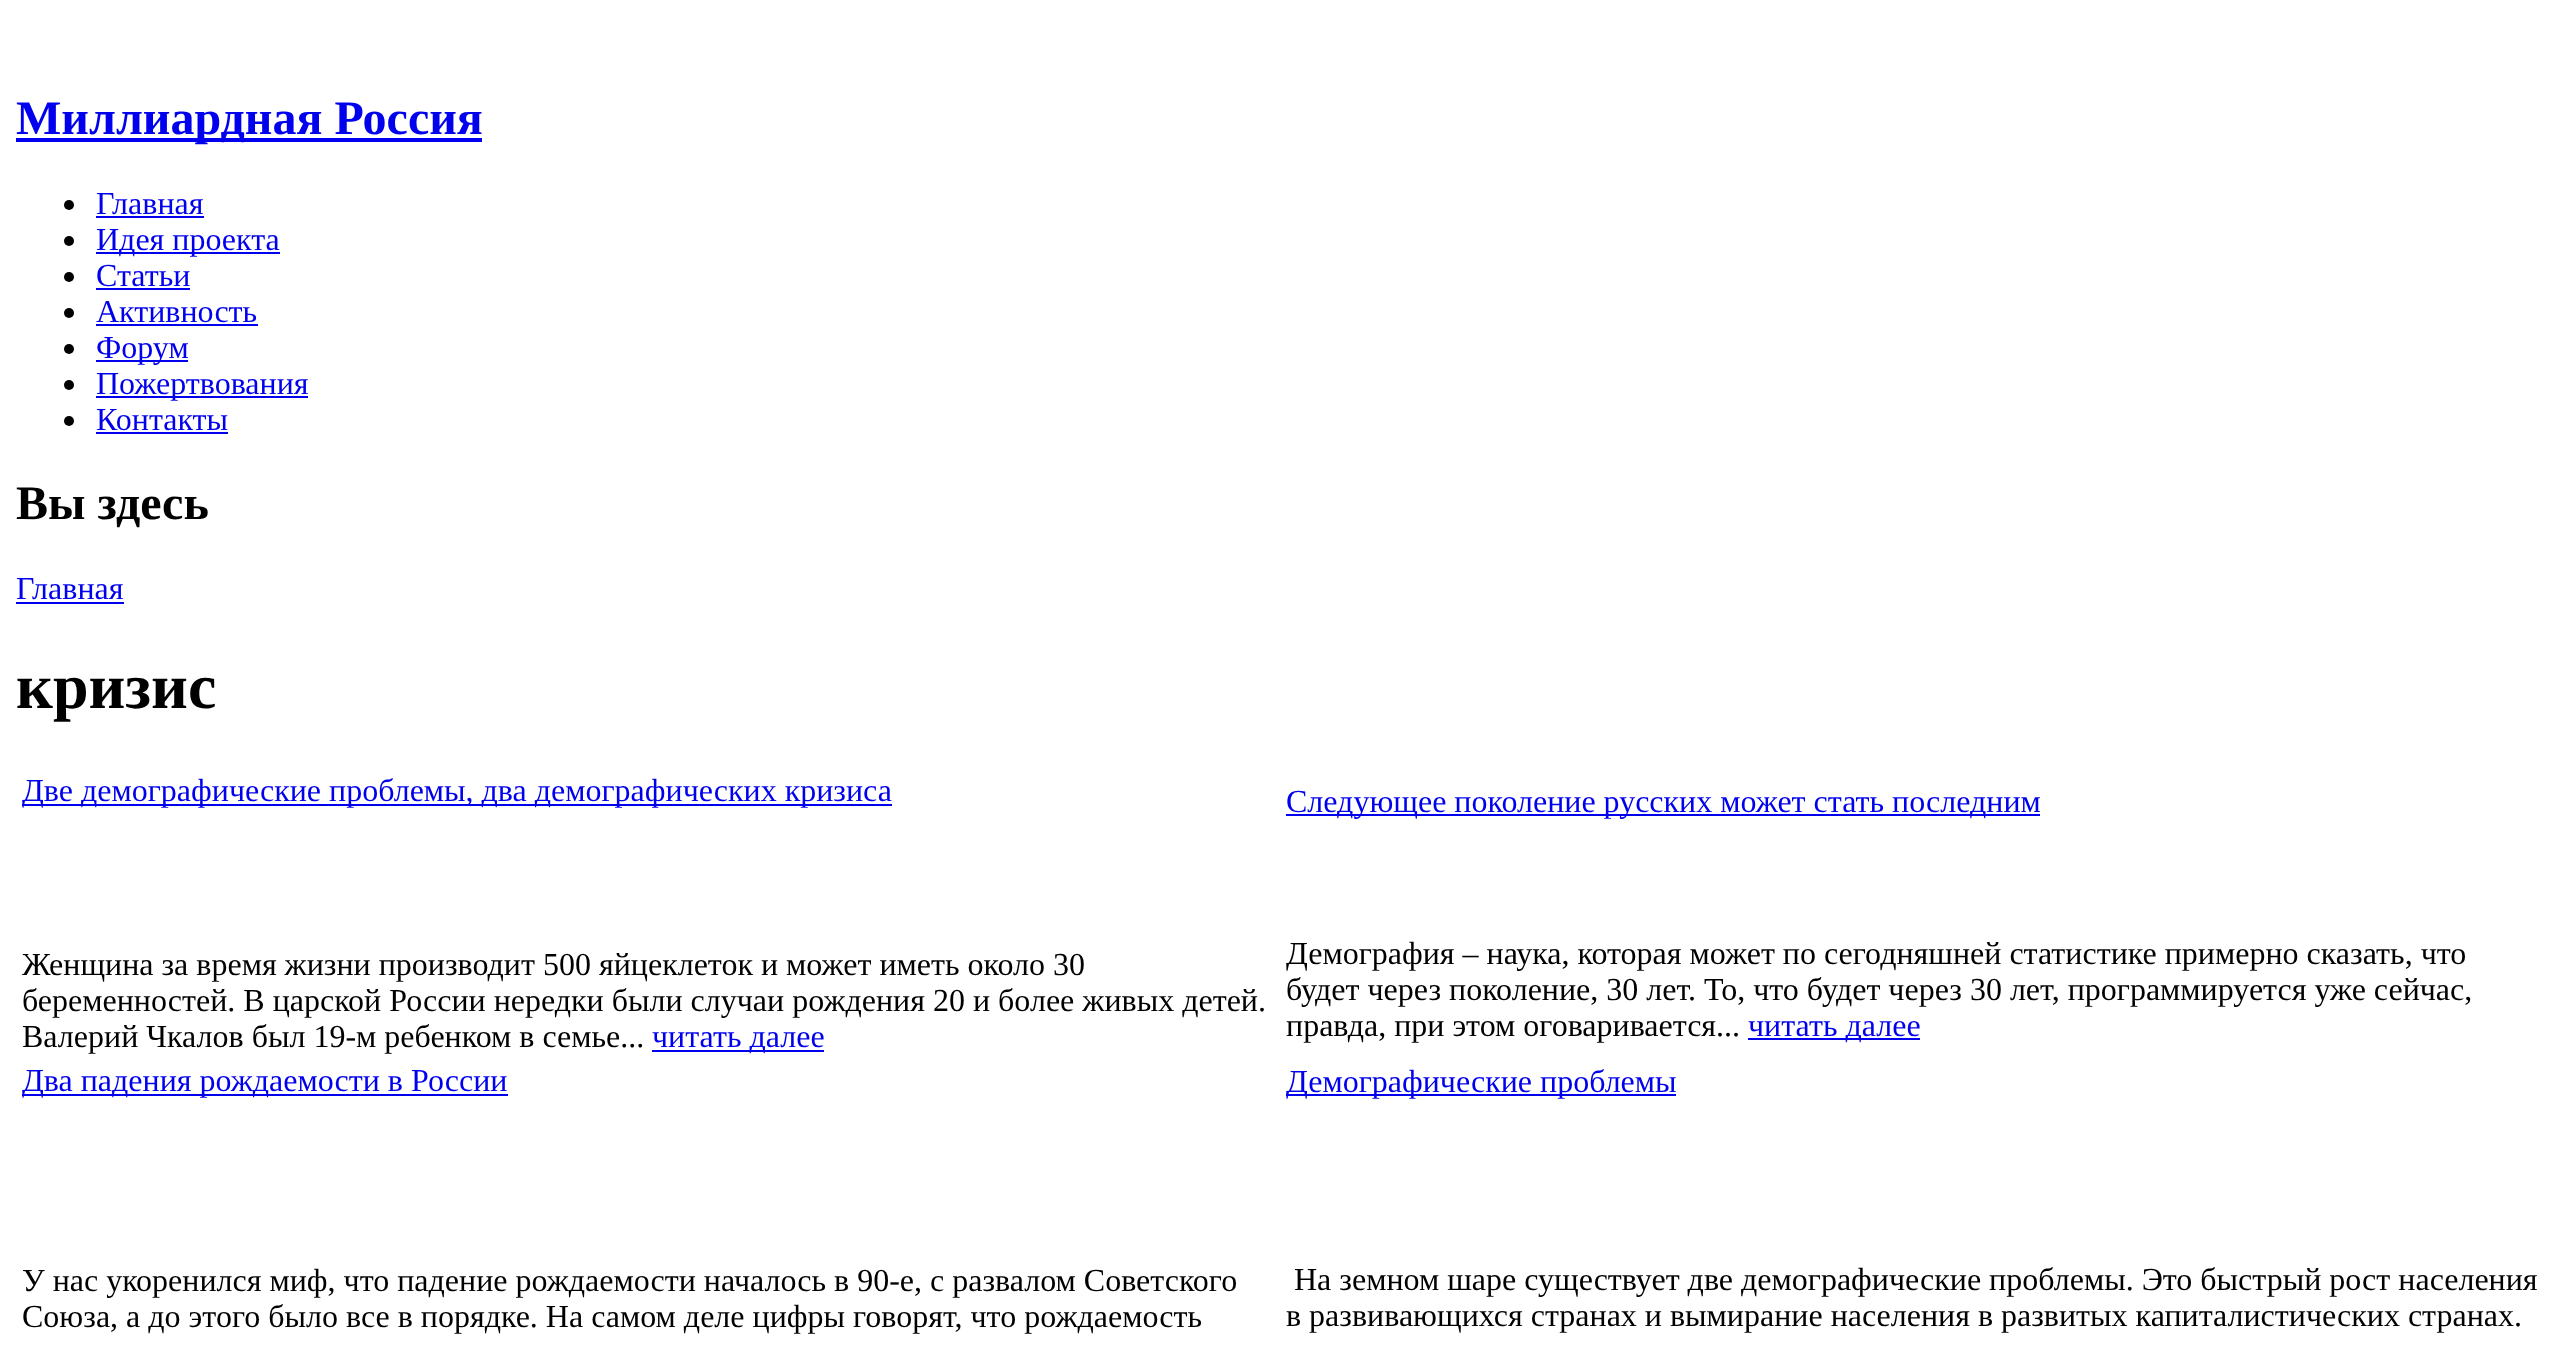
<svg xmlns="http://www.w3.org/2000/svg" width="2566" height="1352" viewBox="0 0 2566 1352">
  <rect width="100%" height="100%" fill="rgb(255,255,255)"/>
  <rect x="16" y="138" width="466" height="4" fill="rgb(0,0,238)"/>
  <text x="16" y="134" font-family="Liberation Serif" font-size="48" font-weight="bold" fill="rgb(0,0,238)">Миллиардная Россия</text>
  <circle cx="69" cy="205" r="5" fill="rgb(0,0,0)"/>
  <text x="96" y="214" font-family="Liberation Serif" font-size="32" fill="rgb(0,0,238)">Главная</text>
  <rect x="96" y="216" width="108" height="2" fill="rgb(0,0,238)"/>
  <circle cx="69" cy="241" r="5" fill="rgb(0,0,0)"/>
  <rect x="96" y="252" width="184" height="2" fill="rgb(0,0,238)"/>
  <text x="96" y="250" font-family="Liberation Serif" font-size="32" fill="rgb(0,0,238)">Идея проекта</text>
  <circle cx="69" cy="277" r="5" fill="rgb(0,0,0)"/>
  <text x="96" y="286" font-family="Liberation Serif" font-size="32" fill="rgb(0,0,238)">Статьи</text>
  <rect x="96" y="288" width="94" height="2" fill="rgb(0,0,238)"/>
  <circle cx="69" cy="313" r="5" fill="rgb(0,0,0)"/>
  <text x="96" y="322" font-family="Liberation Serif" font-size="32" fill="rgb(0,0,238)">Активность</text>
  <rect x="96" y="324" width="162" height="2" fill="rgb(0,0,238)"/>
  <circle cx="69" cy="349" r="5" fill="rgb(0,0,0)"/>
  <rect x="96" y="360" width="92" height="2" fill="rgb(0,0,238)"/>
  <text x="96" y="358" font-family="Liberation Serif" font-size="32" fill="rgb(0,0,238)">Форум</text>
  <circle cx="69" cy="385" r="5" fill="rgb(0,0,0)"/>
  <rect x="96" y="396" width="212" height="2" fill="rgb(0,0,238)"/>
  <text x="96" y="394" font-family="Liberation Serif" font-size="32" fill="rgb(0,0,238)">Пожертвования</text>
  <circle cx="69" cy="421" r="5" fill="rgb(0,0,0)"/>
  <text x="96" y="430" font-family="Liberation Serif" font-size="32" fill="rgb(0,0,238)">Контакты</text>
  <rect x="96" y="432" width="132" height="2" fill="rgb(0,0,238)"/>
  <text x="16" y="519" font-family="Liberation Serif" font-size="48" font-weight="bold" fill="rgb(0,0,0)">Вы здесь</text>
  <text x="16" y="599" font-family="Liberation Serif" font-size="32" fill="rgb(0,0,238)">Главная</text>
  <rect x="16" y="602" width="108" height="2" fill="rgb(0,0,238)"/>
  <text x="16" y="708" font-family="Liberation Serif" font-size="64" font-weight="bold" fill="rgb(0,0,0)">кризис</text>
  <rect x="22" y="804" width="870" height="2" fill="rgb(0,0,238)"/>
  <text x="22" y="801" font-family="Liberation Serif" font-size="32" fill="rgb(0,0,238)">Две демографические проблемы, два демографических кризиса</text>
  <g font-family="Liberation Serif" font-size="32" fill="rgb(0,0,0)">
    <text>
      <tspan x="22" y="975">Женщина за время жизни производит 500 яйцеклеток и может иметь около 30</tspan>
      <tspan x="22" y="1011">беременностей. В царской России нередки были случаи рождения 20 и более живых детей.</tspan>
      <tspan x="22" y="1047">Валерий Чкалов был 19-м ребенком в семье...</tspan>
    </text>
  </g>
  <rect x="652" y="1050" width="172" height="2" fill="rgb(0,0,238)"/>
  <text x="652" y="1047" font-family="Liberation Serif" font-size="32" fill="rgb(0,0,238)">читать далее</text>
  <rect x="1286" y="814" width="754" height="2" fill="rgb(0,0,238)"/>
  <text x="1286" y="812" font-family="Liberation Serif" font-size="32" fill="rgb(0,0,238)">Следующее поколение русских может стать последним</text>
  <g font-family="Liberation Serif" font-size="32" fill="rgb(0,0,0)">
    <text>
      <tspan x="1286" y="964">Демография – наука, которая может по сегодняшней статистике примерно сказать, что</tspan>
      <tspan x="1286" y="1000">будет через поколение, 30 лет. То, что будет через 30 лет, программируется уже сейчас,</tspan>
      <tspan x="1286" y="1036">правда, при этом оговаривается...</tspan>
    </text>
  </g>
  <rect x="1748" y="1038" width="172" height="2" fill="rgb(0,0,238)"/>
  <text x="1748" y="1036" font-family="Liberation Serif" font-size="32" fill="rgb(0,0,238)">читать далее</text>
  <rect x="22" y="1094" width="486" height="2" fill="rgb(0,0,238)"/>
  <text x="22" y="1091" font-family="Liberation Serif" font-size="32" fill="rgb(0,0,238)">Два падения рождаемости в России</text>
  <g font-family="Liberation Serif" font-size="32" fill="rgb(0,0,0)">
    <text>
      <tspan x="22" y="1291">У нас укоренился миф, что падение рождаемости началось в 90-е, с развалом Советского</tspan>
      <tspan x="22" y="1327">Союза, а до этого было все в порядке. На самом деле цифры говорят, что рождаемость</tspan>
    </text>
  </g>
  <rect x="1286" y="1094" width="390" height="2" fill="rgb(0,0,238)"/>
  <text x="1286" y="1092" font-family="Liberation Serif" font-size="32" fill="rgb(0,0,238)">Демографические проблемы</text>
  <g font-family="Liberation Serif" font-size="32" fill="rgb(0,0,0)">
    <text x="1294" y="1290">На земном шаре существует две демографические проблемы. Это быстрый рост населения</text>
    <text x="1286" y="1326">в развивающихся странах и вымирание населения в развитых капиталистических странах.</text>
  </g>
</svg>
